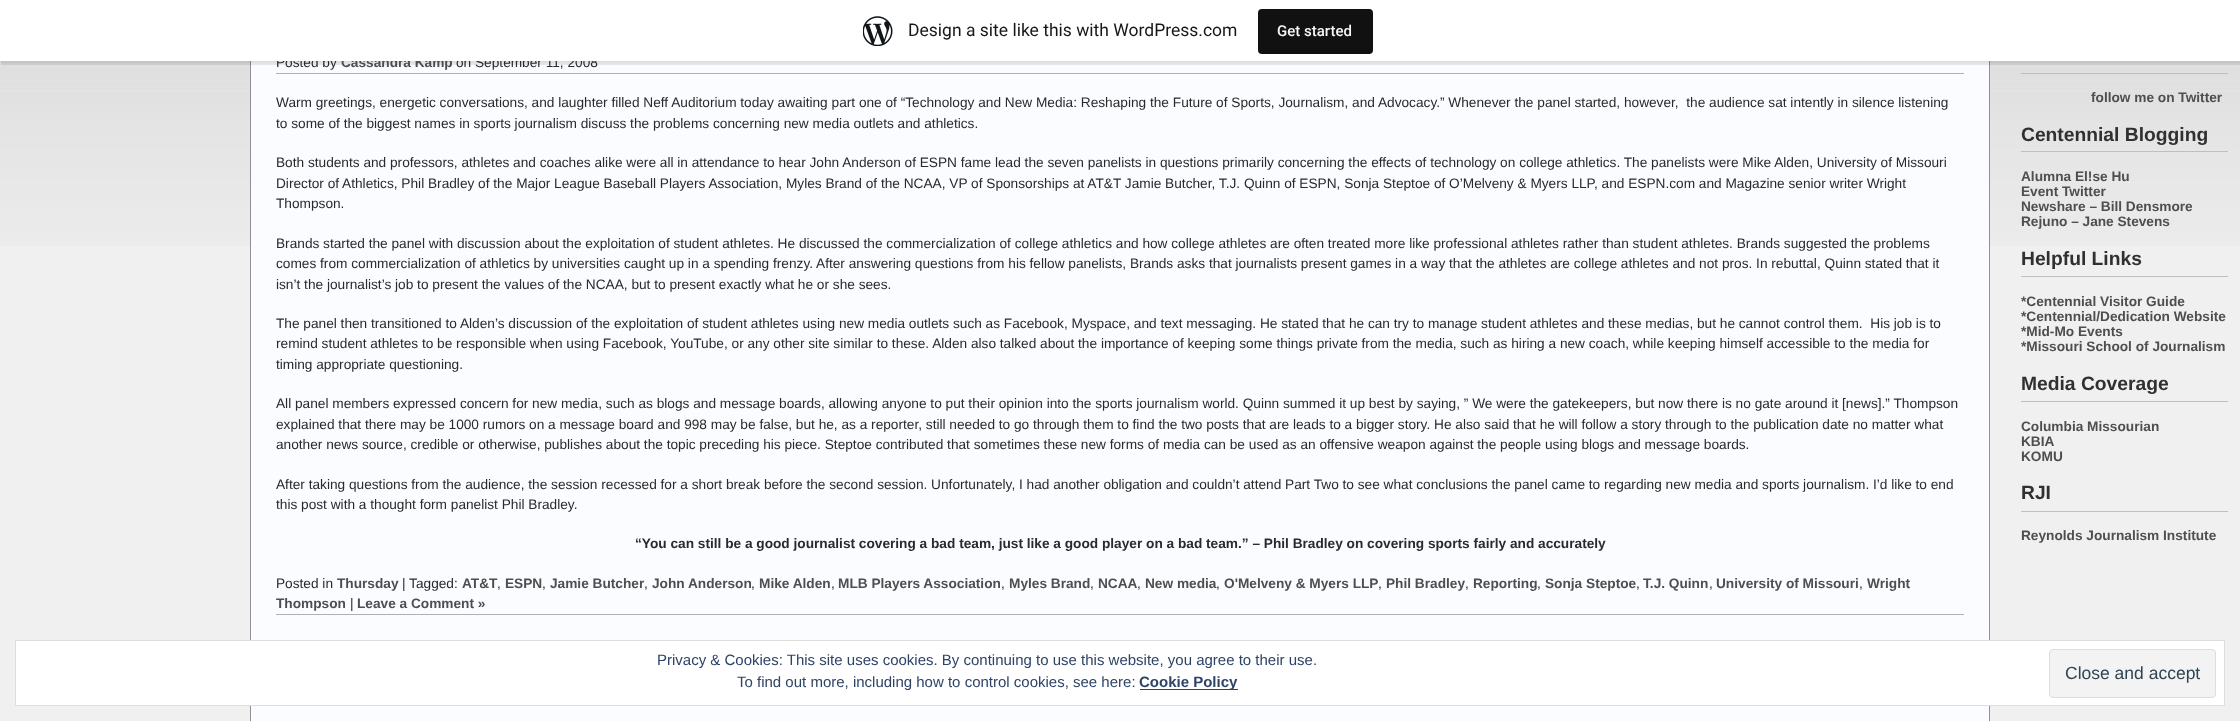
<svg xmlns="http://www.w3.org/2000/svg" width="2240" height="721" viewBox="0 0 2240 721">
  <rect width="100%" height="100%" fill="rgb(240,240,240)"/>
  <image x="0" y="61" width="2240" height="185" href="pic2.png"/>
  <rect x="251" y="61" width="1738" height="660" fill="rgb(250,252,255)"/>
  <rect x="250.5" y="-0.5" width="1739" height="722" fill="none" stroke="rgb(144,144,144)"/>
  <rect x="0" y="1" width="2240" height="62" fill="rgba(0,0,0,0.05)" filter="blur(1px)"/>
  <path d="M1 61V65H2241V4H2240V61Z" fill="rgba(0,0,0,0.08)"/>
  <text x="276" y="67" font-family="Liberation Sans" font-size="13.68" fill="rgb(42,42,42)">Posted by</text>
  <text x="341" y="67" font-family="Liberation Sans" font-size="13.68" font-weight="bold" fill="rgb(78,78,78)">Cassandra Kamp</text>
  <text x="456" y="67" font-family="Liberation Sans" font-size="13.68" fill="rgb(42,42,42)">on September 11, 2008</text>
  <rect x="0" y="0" width="2240" height="61" fill="rgb(255,255,255)"/>
  <image x="863" y="16" width="30" height="30" href="pic1.png"/>
  <text x="908" y="36" font-family="Roboto" font-size="17.5" fill="rgb(23,23,23)">Design a site like this with WordPress.com</text>
  <rect x="1258" y="9" width="115" height="45" rx="4" fill="rgb(17,17,17)"/>
  <text x="1277" y="36" font-family="Roboto" font-size="15" font-weight="500" fill="rgb(246,247,247)">Get started</text>
  <rect x="276" y="73" width="1688" height="1" fill="rgb(176,176,176)"/>
  <g font-family="Liberation Sans" font-size="13.68" fill="rgb(42,42,42)">
    <text xml:space="preserve"><tspan x="276" y="107">Warm greetings, energetic conversations, and laughter filled Neff Auditorium today awaiting part one of “Technology and New Media: Reshaping the Future of Sports, Journalism, and Advocacy.” Whenever the panel started, however,  the audience sat intently in silence listening</tspan><tspan x="276" y="128">to some of the biggest names in sports journalism discuss the problems concerning new media outlets and athletics.</tspan></text>
    <text>
      <tspan x="276" y="167">Both students and professors, athletes and coaches alike were all in attendance to hear John Anderson of ESPN fame lead the seven panelists in questions primarily concerning the effects of technology on college athletics. The panelists were Mike Alden, University of Missouri</tspan>
      <tspan x="276" y="188">Director of Athletics, Phil Bradley of the Major League Baseball Players Association, Myles Brand of the NCAA, VP of Sponsorships at AT&amp;T Jamie Butcher, T.J. Quinn of ESPN, Sonja Steptoe of O’Melveny &amp; Myers LLP, and ESPN.com and Magazine senior writer Wright</tspan>
      <tspan x="276" y="208">Thompson.</tspan>
    </text>
    <text>
      <tspan x="276" y="248">Brands started the panel with discussion about the exploitation of student athletes. He discussed the commercialization of college athletics and how college athletes are often treated more like professional athletes rather than student athletes. Brands suggested the problems</tspan>
      <tspan x="276" y="268">comes from commercialization of athletics by universities caught up in a spending frenzy. After answering questions from his fellow panelists, Brands asks that journalists present games in a way that the athletes are college athletes and not pros. In rebuttal, Quinn stated that it</tspan>
      <tspan x="276" y="289">isn’t the journalist’s job to present the values of the NCAA, but to present exactly what he or she sees.</tspan>
    </text>
    <text xml:space="preserve"><tspan x="276" y="328">The panel then transitioned to Alden’s discussion of the exploitation of student athletes using new media outlets such as Facebook, Myspace, and text messaging. He stated that he can try to manage student athletes and these medias, but he cannot control them.  His job is to</tspan><tspan x="276" y="348">remind student athletes to be responsible when using Facebook, YouTube, or any other site similar to these. Alden also talked about the importance of keeping some things private from the media, such as hiring a new coach, while keeping himself accessible to the media for</tspan><tspan x="276" y="369">timing appropriate questioning.</tspan></text>
    <text>
      <tspan x="276" y="408">All panel members expressed concern for new media, such as blogs and message boards, allowing anyone to put their opinion into the sports journalism world. Quinn summed it up best by saying, ” We were the gatekeepers, but now there is no gate around it [news].” Thompson</tspan>
      <tspan x="276" y="429">explained that there may be 1000 rumors on a message board and 998 may be false, but he, as a reporter, still needed to go through them to find the two posts that are leads to a bigger story. He also said that he will follow a story through to the publication date no matter what</tspan>
      <tspan x="276" y="449">another news source, credible or otherwise, publishes about the topic preceding his piece. Steptoe contributed that sometimes these new forms of media can be used as an offensive weapon against the people using blogs and message boards.</tspan>
    </text>
    <text>
      <tspan x="276" y="489">After taking questions from the audience, the session recessed for a short break before the second session. Unfortunately, I had another obligation and couldn’t attend Part Two to see what conclusions the panel came to regarding new media and sports journalism. I’d like to end</tspan>
      <tspan x="276" y="509">this post with a thought form panelist Phil Bradley.</tspan>
    </text>
  </g>
  <text x="635" y="548" font-family="Liberation Sans" font-size="13.68" font-weight="bold" fill="rgb(42,42,42)">“You can still be a good journalist covering a bad team, just like a good player on a bad team.” – Phil Bradley on covering sports fairly and accurately</text>
  <rect x="276" y="614" width="1688" height="1" fill="rgb(176,176,176)"/>
  <text x="276" y="588" font-family="Liberation Sans" font-size="13.68" fill="rgb(42,42,42)">Posted in</text>
  <text x="337" y="588" font-family="Liberation Sans" font-size="13.68" font-weight="bold" fill="rgb(78,78,78)">Thursday</text>
  <text x="402" y="588" font-family="Liberation Sans" font-size="13.68" fill="rgb(42,42,42)">| Tagged:</text>
  <text x="462" y="588" font-family="Liberation Sans" font-size="13.68" font-weight="bold" fill="rgb(78,78,78)">AT&amp;T</text>
  <text x="497" y="588" font-family="Liberation Sans" font-size="13.68" fill="rgb(42,42,42)">,</text>
  <text x="505" y="588" font-family="Liberation Sans" font-size="13.68" font-weight="bold" fill="rgb(78,78,78)">ESPN</text>
  <text x="542" y="588" font-family="Liberation Sans" font-size="13.68" fill="rgb(42,42,42)">,</text>
  <text x="550" y="588" font-family="Liberation Sans" font-size="13.68" font-weight="bold" fill="rgb(78,78,78)">Jamie Butcher</text>
  <text x="644" y="588" font-family="Liberation Sans" font-size="13.68" fill="rgb(42,42,42)">,</text>
  <text x="652" y="588" font-family="Liberation Sans" font-size="13.68" font-weight="bold" fill="rgb(78,78,78)">John Anderson</text>
  <text x="751" y="588" font-family="Liberation Sans" font-size="13.68" fill="rgb(42,42,42)">,</text>
  <text x="759" y="588" font-family="Liberation Sans" font-size="13.68" font-weight="bold" fill="rgb(78,78,78)">Mike Alden</text>
  <text x="831" y="588" font-family="Liberation Sans" font-size="13.68" fill="rgb(42,42,42)">,</text>
  <text x="838" y="588" font-family="Liberation Sans" font-size="13.68" font-weight="bold" fill="rgb(78,78,78)">MLB Players Association</text>
  <text x="1001" y="588" font-family="Liberation Sans" font-size="13.68" fill="rgb(42,42,42)">,</text>
  <text x="1009" y="588" font-family="Liberation Sans" font-size="13.68" font-weight="bold" fill="rgb(78,78,78)">Myles Brand</text>
  <text x="1090" y="588" font-family="Liberation Sans" font-size="13.68" fill="rgb(42,42,42)">,</text>
  <text x="1098" y="588" font-family="Liberation Sans" font-size="13.68" font-weight="bold" fill="rgb(78,78,78)">NCAA</text>
  <text x="1137" y="588" font-family="Liberation Sans" font-size="13.68" fill="rgb(42,42,42)">,</text>
  <text x="1145" y="588" font-family="Liberation Sans" font-size="13.68" font-weight="bold" fill="rgb(78,78,78)">New media</text>
  <text x="1216" y="588" font-family="Liberation Sans" font-size="13.68" fill="rgb(42,42,42)">,</text>
  <text x="1224" y="588" font-family="Liberation Sans" font-size="13.68" font-weight="bold" fill="rgb(78,78,78)">O'Melveny &amp; Myers LLP</text>
  <text x="1378" y="588" font-family="Liberation Sans" font-size="13.68" fill="rgb(42,42,42)">,</text>
  <text x="1386" y="588" font-family="Liberation Sans" font-size="13.68" font-weight="bold" fill="rgb(78,78,78)">Phil Bradley</text>
  <text x="1465" y="588" font-family="Liberation Sans" font-size="13.68" fill="rgb(42,42,42)">,</text>
  <text x="1473" y="588" font-family="Liberation Sans" font-size="13.68" font-weight="bold" fill="rgb(78,78,78)">Reporting</text>
  <text x="1537" y="588" font-family="Liberation Sans" font-size="13.68" fill="rgb(42,42,42)">,</text>
  <text x="1545" y="588" font-family="Liberation Sans" font-size="13.68" font-weight="bold" fill="rgb(78,78,78)">Sonja Steptoe</text>
  <text x="1636" y="588" font-family="Liberation Sans" font-size="13.68" fill="rgb(42,42,42)">,</text>
  <text x="1643" y="588" font-family="Liberation Sans" font-size="13.68" font-weight="bold" fill="rgb(78,78,78)">T.J. Quinn</text>
  <text x="1709" y="588" font-family="Liberation Sans" font-size="13.68" fill="rgb(42,42,42)">,</text>
  <text x="1716" y="588" font-family="Liberation Sans" font-size="13.68" font-weight="bold" fill="rgb(78,78,78)">University of Missouri</text>
  <text x="1859" y="588" font-family="Liberation Sans" font-size="13.68" fill="rgb(42,42,42)">,</text>
  <g font-family="Liberation Sans" font-size="13.68" font-weight="bold" fill="rgb(78,78,78)">
    <text x="1867" y="588">Wright</text>
    <text x="276" y="608">Thompson</text>
  </g>
  <text x="350" y="608" font-family="Liberation Sans" font-size="13.68" fill="rgb(42,42,42)">|</text>
  <text x="357" y="608" font-family="Liberation Sans" font-size="13.68" font-weight="bold" fill="rgb(78,78,78)">Leave a Comment »</text>
  <rect x="2021" y="73" width="207" height="1" fill="rgb(190,191,195)"/>
  <text x="2091" y="102" font-family="Liberation Sans" font-size="13.68" font-weight="bold" fill="rgb(78,78,78)">follow me on Twitter</text>
  <rect x="2021" y="151" width="207" height="1" fill="rgb(190,191,195)"/>
  <text x="2021" y="141" font-family="Liberation Sans" font-size="19.25" font-weight="bold" fill="rgb(48,48,48)">Centennial Blogging</text>
  <g font-family="Liberation Sans" font-size="13.68" font-weight="bold" fill="rgb(78,78,78)">
    <text>
      <tspan x="2021" y="181">Alumna El!se Hu</tspan>
      <tspan x="2021" y="196">Event Twitter</tspan>
      <tspan x="2021" y="211">Newshare – Bill Densmore</tspan>
      <tspan x="2021" y="226">Rejuno – Jane Stevens</tspan>
    </text>
  </g>
  <rect x="2021" y="276" width="207" height="1" fill="rgb(190,191,195)"/>
  <text x="2021" y="265" font-family="Liberation Sans" font-size="19.25" font-weight="bold" fill="rgb(48,48,48)">Helpful Links</text>
  <g font-family="Liberation Sans" font-size="13.68" font-weight="bold" fill="rgb(78,78,78)">
    <text>
      <tspan x="2021" y="306">*Centennial Visitor Guide</tspan>
      <tspan x="2021" y="321">*Centennial/Dedication Website</tspan>
      <tspan x="2021" y="336">*Mid-Mo Events</tspan>
      <tspan x="2021" y="351">*Missouri School of Journalism</tspan>
    </text>
  </g>
  <rect x="2021" y="401" width="207" height="1" fill="rgb(190,191,195)"/>
  <text x="2021" y="390" font-family="Liberation Sans" font-size="19.25" font-weight="bold" fill="rgb(48,48,48)">Media Coverage</text>
  <g font-family="Liberation Sans" font-size="13.68" font-weight="bold" fill="rgb(78,78,78)">
    <text>
      <tspan x="2021" y="431">Columbia Missourian</tspan>
      <tspan x="2021" y="446">KBIA</tspan>
      <tspan x="2021" y="461">KOMU</tspan>
    </text>
  </g>
  <rect x="2021" y="511" width="207" height="1" fill="rgb(190,191,195)"/>
  <text x="2021" y="499" font-family="Liberation Sans" font-size="19.25" font-weight="bold" fill="rgb(48,48,48)">RJI</text>
  <text x="2021" y="540" font-family="Liberation Sans" font-size="13.68" font-weight="bold" fill="rgb(78,78,78)">Reynolds Journalism Institute</text>
  <rect x="15.5" y="640.5" width="2209" height="65" fill="rgb(255,255,255)" stroke="rgb(222,222,222)"/>
  <g font-family="Liberation Sans" font-size="15" fill="rgb(46,68,103)">
    <text x="657" y="665">Privacy &amp; Cookies: This site uses cookies. By continuing to use this website, you agree to their use.</text>
    <text x="737" y="687">To find out more, including how to control cookies, see here:</text>
  </g>
  <rect x="1140" y="689" width="98" height="1" fill="rgb(46,68,103)"/>
  <text x="1139" y="687" font-family="Liberation Sans" font-size="15" font-weight="bold" fill="rgb(46,68,103)">Cookie Policy</text>
  <rect x="2049.5" y="649.5" width="166" height="48" rx="3.5" fill="rgb(243,243,243)" stroke="rgb(222,222,222)"/>
  <text x="2065" y="679" font-family="Liberation Sans" font-size="17.5" fill="rgb(46,68,83)">Close and accept</text>
</svg>
